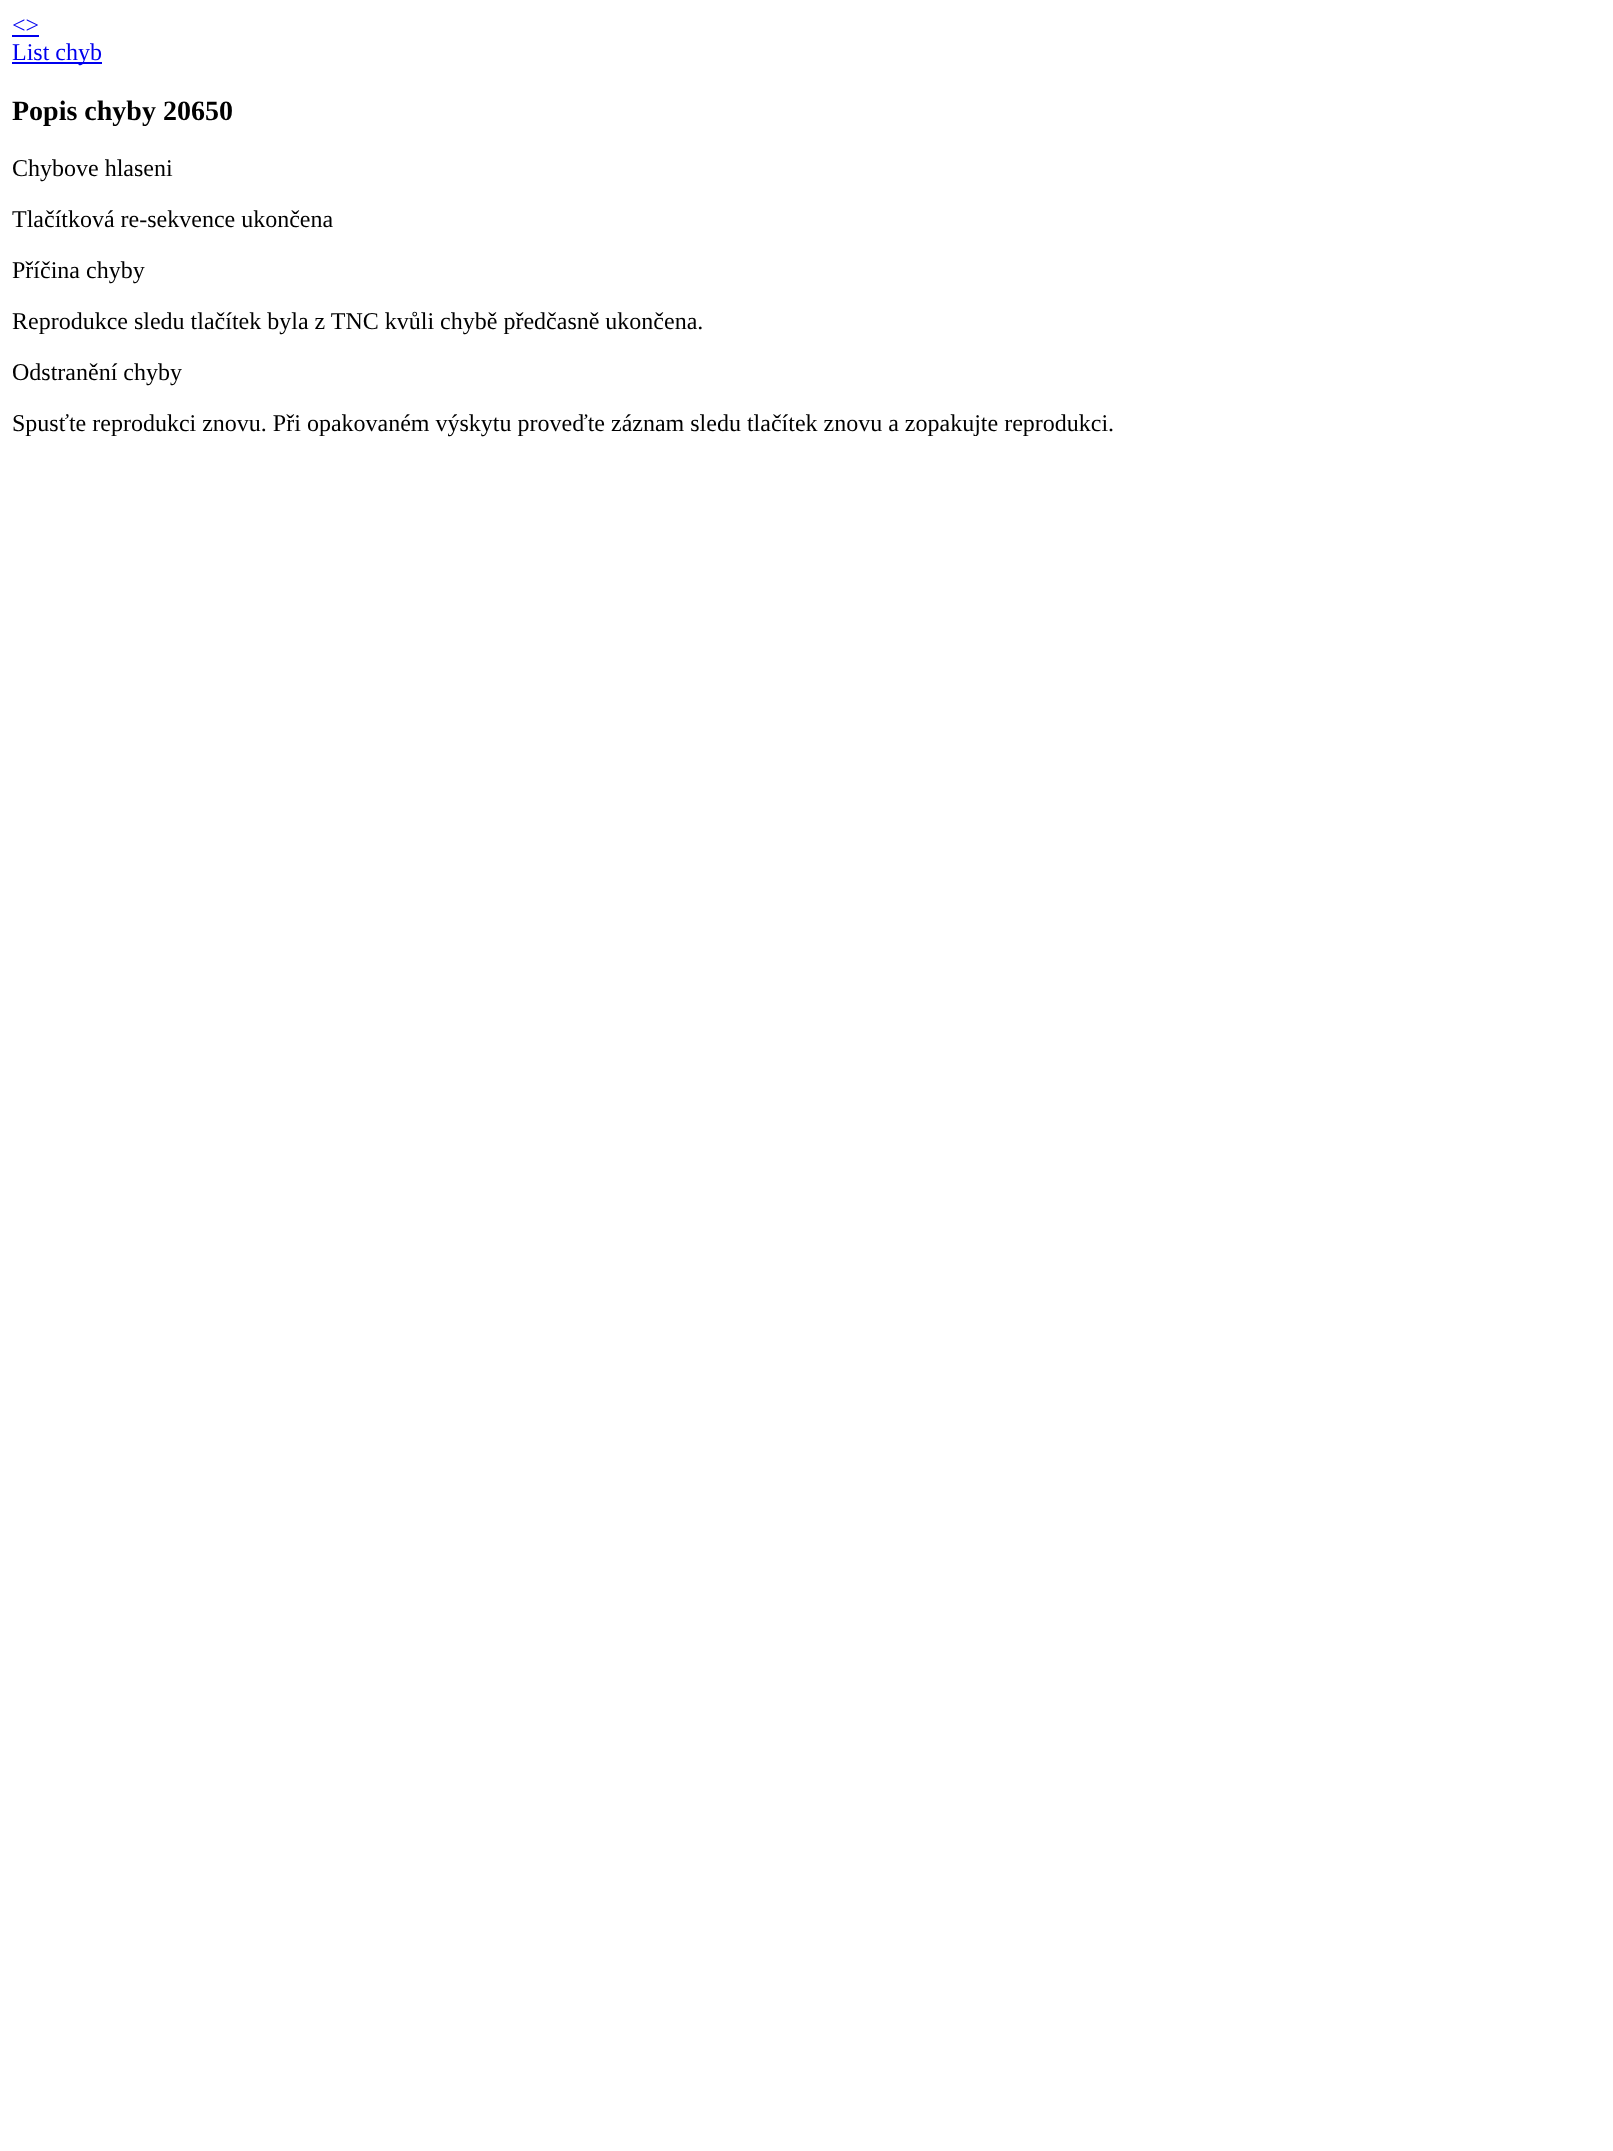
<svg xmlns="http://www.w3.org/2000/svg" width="1613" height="2151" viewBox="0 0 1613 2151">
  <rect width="100%" height="100%" fill="rgb(255,255,255)"/>
  <text x="12" y="33" font-family="Liberation Serif" font-size="24" fill="rgb(0,0,238)">&lt;&gt;</text>
  <rect x="12" y="35" width="27" height="2" fill="rgb(0,0,238)"/>
  <rect x="12" y="62" width="90" height="2" fill="rgb(0,0,238)"/>
  <text x="12" y="60" font-family="Liberation Serif" font-size="24" fill="rgb(0,0,238)">List chyb</text>
  <text x="12" y="120" font-family="Liberation Serif" font-size="28" font-weight="bold" fill="rgb(0,0,0)">Popis chyby 20650</text>
  <g font-family="Liberation Serif" font-size="24" fill="rgb(0,0,0)">
    <text x="12" y="176">Chybove hlaseni</text>
    <text x="12" y="227">Tlačítková re-sekvence ukončena</text>
    <text x="12" y="278">Příčina chyby</text>
    <text x="12" y="329">Reprodukce sledu tlačítek byla z TNC kvůli chybě předčasně ukončena.</text>
    <text x="12" y="380">Odstranění chyby</text>
    <text x="12" y="431">Spusťte reprodukci znovu. Při opakovaném výskytu proveďte záznam sledu tlačítek znovu a zopakujte reprodukci.</text>
  </g>
</svg>
